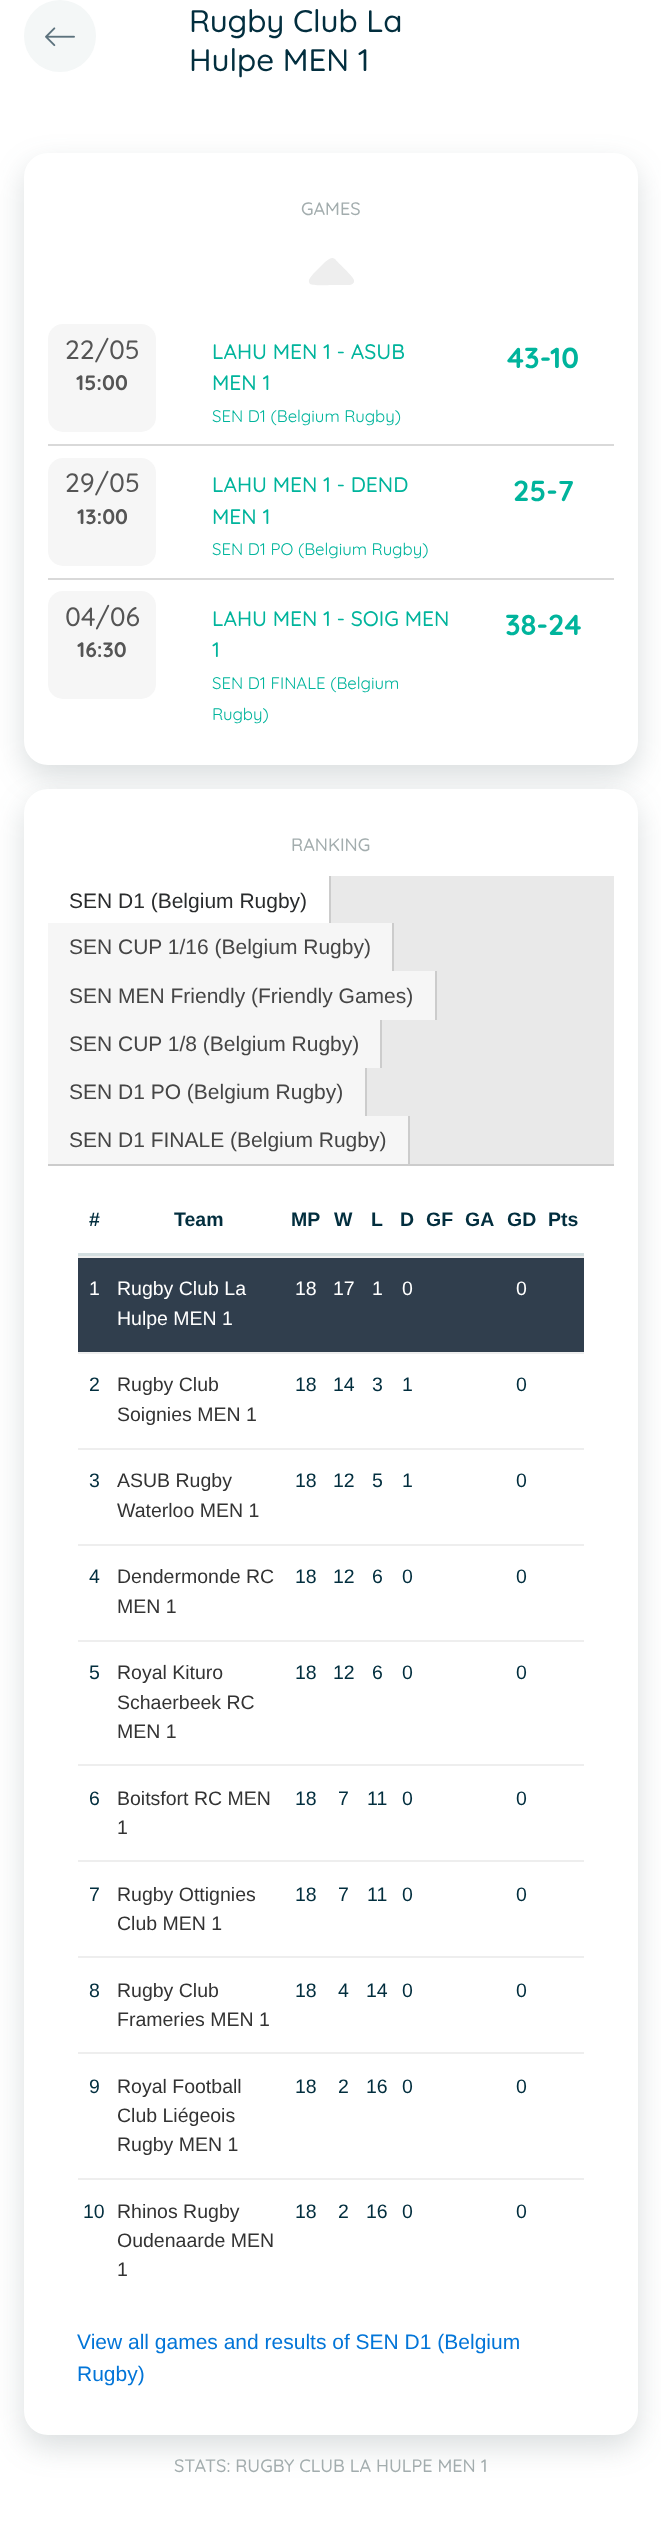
<svg xmlns="http://www.w3.org/2000/svg" width="661" height="2525" viewBox="0 0 661 2525">
  <rect width="100%" height="100%" fill="rgb(255,255,255)"/>
  <circle cx="60" cy="36" r="35" fill="rgb(244,247,247)" stroke="rgb(244,247,247)" stroke-width="2"/>
  <image x="45" y="27" width="30" height="20" href="pic1.png"/>
  <g font-family="Quicksand" font-size="31.25" font-weight="500" fill="rgb(2,46,62)">
    <text>
      <tspan x="189" y="32">Rugby Club La</tspan>
      <tspan x="189" y="71">Hulpe MEN 1</tspan>
    </text>
  </g>
  <rect x="24" y="165" width="614" height="612" rx="24" fill="rgba(71,92,93,0.2)" filter="blur(15px)"/>
  <rect x="24" y="153" width="614" height="612" rx="24" fill="rgb(255,255,255)"/>
  <text x="301" y="215" font-family="Quicksand" font-size="18" font-weight="500" fill="rgb(163,173,174)">GAMES</text>
  <path d="M335 259C331 256 328 260 325 262L313 274C311 277 307 280 310 284C313 286 328 285 332 285H344C347 285 355 286 354 280C353 276 338 263 335 259Z" fill="rgb(238,238,238)"/>
  <rect x="48" y="444" width="566" height="2" fill="rgb(217,217,217)"/>
  <rect x="48" y="324" width="108" height="108" rx="15" fill="rgb(246,246,246)"/>
  <text x="65" y="359" font-family="Quicksand" font-size="26.5" font-weight="500" fill="rgb(85,85,85)">22/05</text>
  <text x="76" y="390" font-family="Quicksand" font-size="21" font-weight="bold" fill="rgb(85,85,85)">15:00</text>
  <g font-family="Quicksand" font-size="21" font-weight="500" fill="rgb(0,180,156)">
    <text>
      <tspan x="212" y="359">LAHU MEN 1 - ASUB</tspan>
      <tspan x="212" y="390">MEN 1</tspan>
    </text>
  </g>
  <text x="212" y="422" font-family="Quicksand" font-size="16.75" fill="rgb(0,180,156)">SEN D1 (Belgium Rugby)</text>
  <text x="507" y="368" font-family="Quicksand" font-size="29" font-weight="bold" fill="rgb(0,180,156)">43-10</text>
  <rect x="48" y="578" width="566" height="2" fill="rgb(217,217,217)"/>
  <rect x="48" y="458" width="108" height="108" rx="15" fill="rgb(246,246,246)"/>
  <text x="65" y="492" font-family="Quicksand" font-size="26.5" font-weight="500" fill="rgb(85,85,85)">29/05</text>
  <text x="77" y="524" font-family="Quicksand" font-size="21" font-weight="bold" fill="rgb(85,85,85)">13:00</text>
  <g font-family="Quicksand" font-size="21" font-weight="500" fill="rgb(0,180,156)">
    <text>
      <tspan x="212" y="492">LAHU MEN 1 - DEND</tspan>
      <tspan x="212" y="524">MEN 1</tspan>
    </text>
  </g>
  <text x="212" y="555" font-family="Quicksand" font-size="16.75" fill="rgb(0,180,156)">SEN D1 PO (Belgium Rugby)</text>
  <text x="513" y="501" font-family="Quicksand" font-size="29" font-weight="bold" fill="rgb(0,180,156)">25-7</text>
  <rect x="48" y="591" width="108" height="108" rx="15" fill="rgb(246,246,246)"/>
  <text x="65" y="626" font-family="Quicksand" font-size="26.5" font-weight="500" fill="rgb(85,85,85)">04/06</text>
  <text x="77" y="657" font-family="Quicksand" font-size="21" font-weight="bold" fill="rgb(85,85,85)">16:30</text>
  <g font-family="Quicksand" font-size="21" font-weight="500" fill="rgb(0,180,156)">
    <text>
      <tspan x="212" y="626">LAHU MEN 1 - SOIG MEN</tspan>
      <tspan x="212" y="657">1</tspan>
    </text>
  </g>
  <g font-family="Quicksand" font-size="16.75" fill="rgb(0,180,156)">
    <text>
      <tspan x="212" y="689">SEN D1 FINALE (Belgium</tspan>
      <tspan x="212" y="720">Rugby)</tspan>
    </text>
  </g>
  <text x="505" y="635" font-family="Quicksand" font-size="29" font-weight="bold" fill="rgb(0,180,156)">38-24</text>
  <rect x="24" y="801" width="614" height="1646" rx="24" fill="rgba(71,92,93,0.2)" filter="blur(15px)"/>
  <rect x="24" y="789" width="614" height="1646" rx="24" fill="rgb(255,255,255)"/>
  <text x="291" y="851" font-family="Quicksand" font-size="18" font-weight="500" fill="rgb(163,173,174)">RANKING</text>
  <rect x="331" y="876" width="283" height="288" fill="rgb(233,233,233)"/>
  <rect x="48" y="1164" width="566" height="2" fill="rgb(204,204,204)"/>
  <rect x="329" y="876" width="2" height="50" fill="rgb(204,204,204)"/>
  <text x="69" y="908" font-family="Liberation Sans" font-size="21" fill="rgb(41,43,44)">SEN D1 (Belgium Rugby)</text>
  <rect x="48" y="923" width="344" height="48" fill="rgb(246,246,246)"/>
  <rect x="392" y="923" width="2" height="48" fill="rgb(204,204,204)"/>
  <text x="69" y="954" font-family="Liberation Sans" font-size="21" fill="rgb(69,69,69)">SEN CUP 1/16 (Belgium Rugby)</text>
  <rect x="48" y="971" width="387" height="49" fill="rgb(246,246,246)"/>
  <rect x="435" y="971" width="2" height="49" fill="rgb(204,204,204)"/>
  <text x="69" y="1003" font-family="Liberation Sans" font-size="21" fill="rgb(69,69,69)">SEN MEN Friendly (Friendly Games)</text>
  <rect x="48" y="1020" width="332" height="48" fill="rgb(246,246,246)"/>
  <rect x="380" y="1020" width="2" height="48" fill="rgb(204,204,204)"/>
  <text x="69" y="1051" font-family="Liberation Sans" font-size="21" fill="rgb(69,69,69)">SEN CUP 1/8 (Belgium Rugby)</text>
  <rect x="48" y="1068" width="317" height="48" fill="rgb(246,246,246)"/>
  <rect x="365" y="1068" width="2" height="48" fill="rgb(204,204,204)"/>
  <text x="69" y="1099" font-family="Liberation Sans" font-size="21" fill="rgb(69,69,69)">SEN D1 PO (Belgium Rugby)</text>
  <rect x="48" y="1116" width="360" height="48" fill="rgb(246,246,246)"/>
  <rect x="408" y="1116" width="2" height="48" fill="rgb(204,204,204)"/>
  <text x="69" y="1147" font-family="Liberation Sans" font-size="21" fill="rgb(69,69,69)">SEN D1 FINALE (Belgium Rugby)</text>
  <rect x="78" y="1253" width="506" height="3" fill="rgb(212,223,225)"/>
  <g font-family="Liberation Sans" font-size="19.5" font-weight="bold" fill="rgb(2,46,62)">
    <text x="89" y="1226">#</text>
    <text x="174" y="1226">Team</text>
    <text x="291" y="1226">MP</text>
    <text x="334" y="1226">W</text>
    <text x="371" y="1226">L</text>
    <text x="400" y="1226">D</text>
    <text x="426" y="1226">GF</text>
    <text x="465" y="1226">GA</text>
    <text x="507" y="1226">GD</text>
    <text x="548" y="1226">Pts</text>
  </g>
  <rect x="78" y="1258" width="506" height="94" fill="rgb(48,62,77)"/>
  <rect x="78" y="1256" width="506" height="2" fill="rgb(238,238,238)"/>
  <g font-family="Liberation Sans" font-size="19.5" fill="rgb(255,255,255)">
    <text x="89" y="1295">1</text>
    <text>
      <tspan x="117" y="1295">Rugby Club La</tspan>
      <tspan x="117" y="1325">Hulpe MEN 1</tspan>
    </text>
    <text x="295" y="1295">18</text>
    <text x="333" y="1295">17</text>
    <text x="372" y="1295">1</text>
    <text x="402" y="1295">0</text>
    <text x="516" y="1295">0</text>
  </g>
  <rect x="78" y="1352" width="506" height="2" fill="rgb(238,238,238)"/>
  <text x="89" y="1391" font-family="Liberation Sans" font-size="19.5" fill="rgb(2,46,62)">2</text>
  <g font-family="Liberation Sans" font-size="19.5" fill="rgb(51,51,51)">
    <text>
      <tspan x="117" y="1391">Rugby Club</tspan>
      <tspan x="117" y="1421">Soignies MEN 1</tspan>
    </text>
  </g>
  <g font-family="Liberation Sans" font-size="19.5" fill="rgb(2,46,62)">
    <text x="295" y="1391">18</text>
    <text x="333" y="1391">14</text>
    <text x="372" y="1391">3</text>
    <text x="402" y="1391">1</text>
    <text x="516" y="1391">0</text>
  </g>
  <rect x="78" y="1448" width="506" height="2" fill="rgb(238,238,238)"/>
  <text x="89" y="1487" font-family="Liberation Sans" font-size="19.5" fill="rgb(2,46,62)">3</text>
  <g font-family="Liberation Sans" font-size="19.5" fill="rgb(51,51,51)">
    <text>
      <tspan x="117" y="1487">ASUB Rugby</tspan>
      <tspan x="117" y="1517">Waterloo MEN 1</tspan>
    </text>
  </g>
  <g font-family="Liberation Sans" font-size="19.5" fill="rgb(2,46,62)">
    <text x="295" y="1487">18</text>
    <text x="333" y="1487">12</text>
    <text x="372" y="1487">5</text>
    <text x="402" y="1487">1</text>
    <text x="516" y="1487">0</text>
  </g>
  <rect x="78" y="1544" width="506" height="2" fill="rgb(238,238,238)"/>
  <text x="89" y="1583" font-family="Liberation Sans" font-size="19.5" fill="rgb(2,46,62)">4</text>
  <g font-family="Liberation Sans" font-size="19.5" fill="rgb(51,51,51)">
    <text>
      <tspan x="117" y="1583">Dendermonde RC</tspan>
      <tspan x="117" y="1613">MEN 1</tspan>
    </text>
  </g>
  <g font-family="Liberation Sans" font-size="19.5" fill="rgb(2,46,62)">
    <text x="295" y="1583">18</text>
    <text x="333" y="1583">12</text>
    <text x="372" y="1583">6</text>
    <text x="402" y="1583">0</text>
    <text x="516" y="1583">0</text>
  </g>
  <rect x="78" y="1640" width="506" height="2" fill="rgb(238,238,238)"/>
  <text x="89" y="1679" font-family="Liberation Sans" font-size="19.5" fill="rgb(2,46,62)">5</text>
  <g font-family="Liberation Sans" font-size="19.5" fill="rgb(51,51,51)">
    <text>
      <tspan x="117" y="1679">Royal Kituro</tspan>
      <tspan x="117" y="1709">Schaerbeek RC</tspan>
      <tspan x="117" y="1738">MEN 1</tspan>
    </text>
  </g>
  <g font-family="Liberation Sans" font-size="19.5" fill="rgb(2,46,62)">
    <text x="295" y="1679">18</text>
    <text x="333" y="1679">12</text>
    <text x="372" y="1679">6</text>
    <text x="402" y="1679">0</text>
    <text x="516" y="1679">0</text>
  </g>
  <rect x="78" y="1764" width="506" height="2" fill="rgb(238,238,238)"/>
  <text x="89" y="1805" font-family="Liberation Sans" font-size="19.5" fill="rgb(2,46,62)">6</text>
  <g font-family="Liberation Sans" font-size="19.5" fill="rgb(51,51,51)">
    <text>
      <tspan x="117" y="1805">Boitsfort RC MEN</tspan>
      <tspan x="117" y="1834">1</tspan>
    </text>
  </g>
  <g font-family="Liberation Sans" font-size="19.5" fill="rgb(2,46,62)">
    <text x="295" y="1805">18</text>
    <text x="338" y="1805">7</text>
    <text x="367" y="1805">11</text>
    <text x="402" y="1805">0</text>
    <text x="516" y="1805">0</text>
  </g>
  <rect x="78" y="1860" width="506" height="2" fill="rgb(238,238,238)"/>
  <text x="89" y="1901" font-family="Liberation Sans" font-size="19.5" fill="rgb(2,46,62)">7</text>
  <g font-family="Liberation Sans" font-size="19.5" fill="rgb(51,51,51)">
    <text>
      <tspan x="117" y="1901">Rugby Ottignies</tspan>
      <tspan x="117" y="1930">Club MEN 1</tspan>
    </text>
  </g>
  <g font-family="Liberation Sans" font-size="19.5" fill="rgb(2,46,62)">
    <text x="295" y="1901">18</text>
    <text x="338" y="1901">7</text>
    <text x="367" y="1901">11</text>
    <text x="402" y="1901">0</text>
    <text x="516" y="1901">0</text>
  </g>
  <rect x="78" y="1956" width="506" height="2" fill="rgb(238,238,238)"/>
  <text x="89" y="1997" font-family="Liberation Sans" font-size="19.5" fill="rgb(2,46,62)">8</text>
  <g font-family="Liberation Sans" font-size="19.5" fill="rgb(51,51,51)">
    <text>
      <tspan x="117" y="1997">Rugby Club</tspan>
      <tspan x="117" y="2026">Frameries MEN 1</tspan>
    </text>
  </g>
  <g font-family="Liberation Sans" font-size="19.5" fill="rgb(2,46,62)">
    <text x="295" y="1997">18</text>
    <text x="338" y="1997">4</text>
    <text x="366" y="1997">14</text>
    <text x="402" y="1997">0</text>
    <text x="516" y="1997">0</text>
  </g>
  <rect x="78" y="2052" width="506" height="2" fill="rgb(238,238,238)"/>
  <text x="89" y="2093" font-family="Liberation Sans" font-size="19.5" fill="rgb(2,46,62)">9</text>
  <g font-family="Liberation Sans" font-size="19.5" fill="rgb(51,51,51)">
    <text>
      <tspan x="117" y="2093">Royal Football</tspan>
      <tspan x="117" y="2122">Club Liégeois</tspan>
      <tspan x="117" y="2151">Rugby MEN 1</tspan>
    </text>
  </g>
  <g font-family="Liberation Sans" font-size="19.5" fill="rgb(2,46,62)">
    <text x="295" y="2093">18</text>
    <text x="338" y="2093">2</text>
    <text x="366" y="2093">16</text>
    <text x="402" y="2093">0</text>
    <text x="516" y="2093">0</text>
  </g>
  <rect x="78" y="2178" width="506" height="2" fill="rgb(238,238,238)"/>
  <text x="83" y="2218" font-family="Liberation Sans" font-size="19.5" fill="rgb(2,46,62)">10</text>
  <g font-family="Liberation Sans" font-size="19.5" fill="rgb(51,51,51)">
    <text>
      <tspan x="117" y="2218">Rhinos Rugby</tspan>
      <tspan x="117" y="2247">Oudenaarde MEN</tspan>
      <tspan x="117" y="2276">1</tspan>
    </text>
  </g>
  <g font-family="Liberation Sans" font-size="19.5" fill="rgb(2,46,62)">
    <text x="295" y="2218">18</text>
    <text x="338" y="2218">2</text>
    <text x="366" y="2218">16</text>
    <text x="402" y="2218">0</text>
    <text x="516" y="2218">0</text>
  </g>
  <g font-family="Liberation Sans" font-size="21" fill="rgb(2,117,216)">
    <text>
      <tspan x="77" y="2349">View all games and results of SEN D1 (Belgium</tspan>
      <tspan x="77" y="2381">Rugby)</tspan>
    </text>
  </g>
  <text x="174" y="2472" font-family="Quicksand" font-size="18" font-weight="500" fill="rgb(163,173,174)">STATS: RUGBY CLUB LA HULPE MEN 1</text>
</svg>
